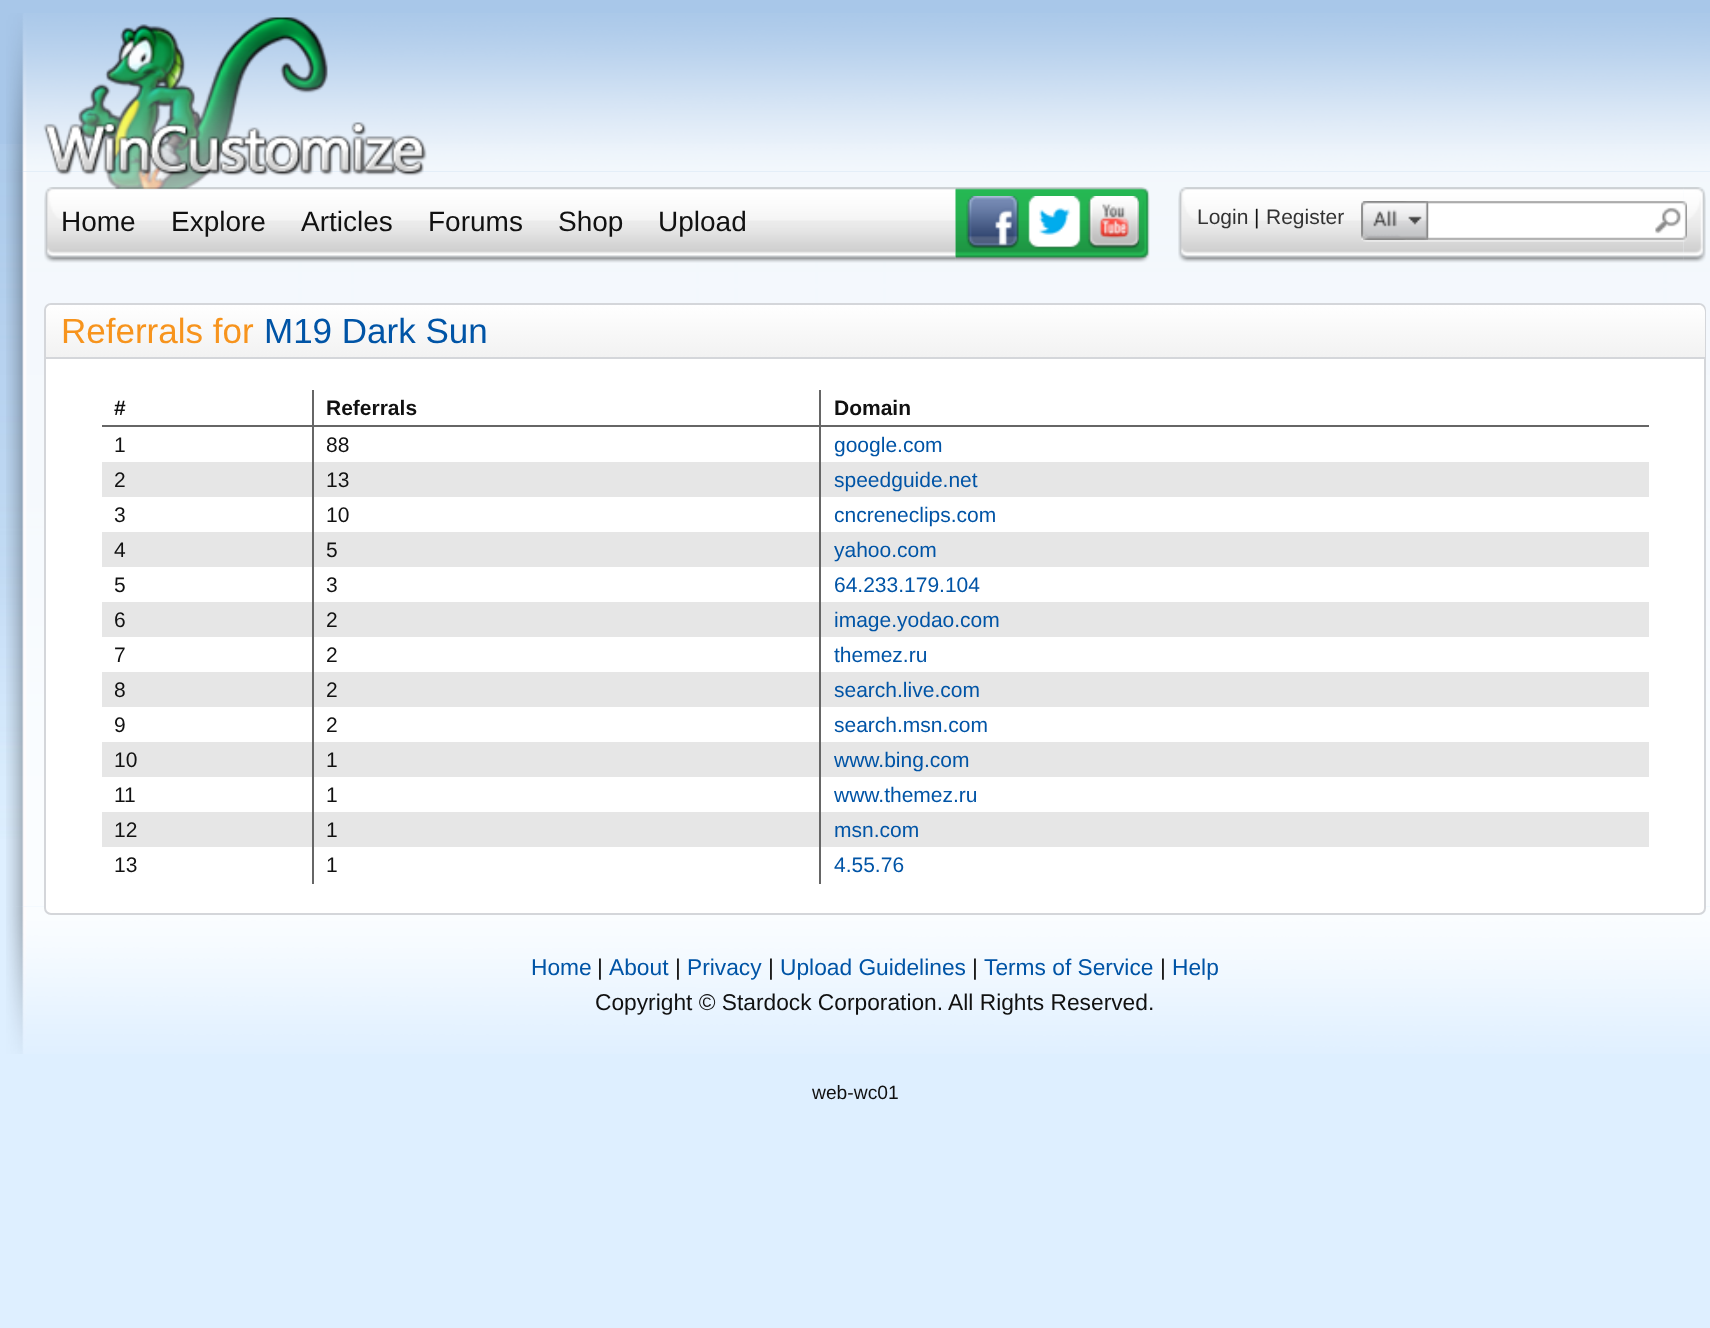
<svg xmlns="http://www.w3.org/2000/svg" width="1710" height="1328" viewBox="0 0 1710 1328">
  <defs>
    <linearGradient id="g1" gradientUnits="userSpaceOnUse" x1="875" y1="304" x2="875" y2="357"><stop offset="0" stop-color="rgb(255,255,255)"/><stop offset="1" stop-color="rgb(242,242,242)"/></linearGradient>
  </defs>
  <rect width="100%" height="100%" fill="rgb(168,199,233)"/>
  <image x="0" y="144" width="1710" height="1184" href="pic1.png"/>
  <image x="6" y="13" width="1704" height="159" href="pic2.png"/>
  <image x="6" y="171" width="1704" height="736" href="pic3.png"/>
  <image x="43" y="17" width="384" height="172" href="pic4.png"/>
  <image x="44" y="187" width="19" height="76" href="pic5.png"/>
  <image x="63" y="187" width="893" height="76" href="pic6.png"/>
  <image x="955" y="187" width="195" height="76" href="pic7.png"/>
  <g font-family="Liberation Sans" font-size="28" fill="rgb(17,17,17)">
    <text x="61" y="231">Home</text>
    <text x="171" y="231">Explore</text>
    <text x="301" y="231">Articles</text>
    <text x="428" y="231">Forums</text>
    <text x="558" y="231">Shop</text>
    <text x="658" y="231">Upload</text>
  </g>
  <image x="966" y="196" width="174" height="53" href="pic8.png"/>
  <image x="1178" y="187" width="19" height="76" href="pic9.png"/>
  <image x="1197" y="187" width="487" height="76" href="pic10.png"/>
  <image x="1683" y="187" width="23" height="76" href="pic11.png"/>
  <text x="1197" y="224" font-family="Liberation Sans" font-size="21" fill="rgb(51,51,51)">Login</text>
  <text x="1254" y="224" font-family="Liberation Sans" font-size="21" fill="rgb(17,17,17)">|</text>
  <text x="1266" y="224" font-family="Liberation Sans" font-size="21" fill="rgb(51,51,51)">Register</text>
  <image x="1361" y="201" width="326" height="41" href="pic12.png"/>
  <image x="1361" y="201" width="48" height="39" href="pic13.png"/>
  <image x="1361" y="201" width="47" height="39" href="pic14.png"/>
  <image x="1363" y="201" width="65" height="39" href="pic15.png"/>
  <image x="6" y="906" width="1704" height="148" href="pic16.png"/>
  <rect x="45" y="304" width="1660" height="610" rx="6" fill="rgb(255,255,255)" stroke="rgb(212,214,218)" stroke-width="2"/>
  <path d="M53 305H1698C1702 305 1705 308 1705 312V357H46V312C46 308 49 305 53 305Z" fill="url(#g1)"/>
  <rect x="46" y="357" width="1659" height="2" fill="rgb(212,214,218)"/>
  <text x="61" y="343" font-family="Liberation Sans" font-size="35" fill="rgb(247,148,29)">Referrals for</text>
  <text x="264" y="343" font-family="Liberation Sans" font-size="35" fill="rgb(0,84,166)">M19 Dark Sun</text>
  <rect x="819" y="425" width="2" height="459" fill="rgb(102,102,102)"/>
  <rect x="819" y="425" width="830" height="2" fill="rgb(102,102,102)"/>
  <rect x="819" y="390" width="2" height="37" fill="rgb(102,102,102)"/>
  <rect x="312" y="425" width="2" height="459" fill="rgb(102,102,102)"/>
  <rect x="312" y="425" width="509" height="2" fill="rgb(102,102,102)"/>
  <rect x="312" y="390" width="2" height="37" fill="rgb(102,102,102)"/>
  <rect x="102" y="425" width="211" height="2" fill="rgb(102,102,102)"/>
  <g font-family="Liberation Sans" font-size="21" font-weight="bold" fill="rgb(17,17,17)">
    <text x="114" y="415">#</text>
    <text x="326" y="415">Referrals</text>
    <text x="834" y="415">Domain</text>
  </g>
  <g font-family="Liberation Sans" font-size="21" fill="rgb(17,17,17)">
    <text x="114" y="452">1</text>
    <text x="326" y="452">88</text>
  </g>
  <text x="834" y="452" font-family="Liberation Sans" font-size="21" fill="rgb(0,84,166)">google.com</text>
  <rect x="102" y="462" width="210" height="35" fill="rgb(230,230,230)"/>
  <text x="114" y="487" font-family="Liberation Sans" font-size="21" fill="rgb(17,17,17)">2</text>
  <rect x="314" y="462" width="505" height="35" fill="rgb(230,230,230)"/>
  <text x="326" y="487" font-family="Liberation Sans" font-size="21" fill="rgb(17,17,17)">13</text>
  <rect x="821" y="462" width="828" height="35" fill="rgb(230,230,230)"/>
  <text x="834" y="487" font-family="Liberation Sans" font-size="21" fill="rgb(0,84,166)">speedguide.net</text>
  <g font-family="Liberation Sans" font-size="21" fill="rgb(17,17,17)">
    <text x="114" y="522">3</text>
    <text x="326" y="522">10</text>
  </g>
  <text x="834" y="522" font-family="Liberation Sans" font-size="21" fill="rgb(0,84,166)">cncreneclips.com</text>
  <rect x="102" y="532" width="210" height="35" fill="rgb(230,230,230)"/>
  <text x="114" y="557" font-family="Liberation Sans" font-size="21" fill="rgb(17,17,17)">4</text>
  <rect x="314" y="532" width="505" height="35" fill="rgb(230,230,230)"/>
  <text x="326" y="557" font-family="Liberation Sans" font-size="21" fill="rgb(17,17,17)">5</text>
  <rect x="821" y="532" width="828" height="35" fill="rgb(230,230,230)"/>
  <text x="834" y="557" font-family="Liberation Sans" font-size="21" fill="rgb(0,84,166)">yahoo.com</text>
  <g font-family="Liberation Sans" font-size="21" fill="rgb(17,17,17)">
    <text x="114" y="592">5</text>
    <text x="326" y="592">3</text>
  </g>
  <text x="834" y="592" font-family="Liberation Sans" font-size="21" fill="rgb(0,84,166)">64.233.179.104</text>
  <rect x="102" y="602" width="210" height="35" fill="rgb(230,230,230)"/>
  <text x="114" y="627" font-family="Liberation Sans" font-size="21" fill="rgb(17,17,17)">6</text>
  <rect x="314" y="602" width="505" height="35" fill="rgb(230,230,230)"/>
  <text x="326" y="627" font-family="Liberation Sans" font-size="21" fill="rgb(17,17,17)">2</text>
  <rect x="821" y="602" width="828" height="35" fill="rgb(230,230,230)"/>
  <text x="834" y="627" font-family="Liberation Sans" font-size="21" fill="rgb(0,84,166)">image.yodao.com</text>
  <g font-family="Liberation Sans" font-size="21" fill="rgb(17,17,17)">
    <text x="114" y="662">7</text>
    <text x="326" y="662">2</text>
  </g>
  <text x="834" y="662" font-family="Liberation Sans" font-size="21" fill="rgb(0,84,166)">themez.ru</text>
  <rect x="102" y="672" width="210" height="35" fill="rgb(230,230,230)"/>
  <text x="114" y="697" font-family="Liberation Sans" font-size="21" fill="rgb(17,17,17)">8</text>
  <rect x="314" y="672" width="505" height="35" fill="rgb(230,230,230)"/>
  <text x="326" y="697" font-family="Liberation Sans" font-size="21" fill="rgb(17,17,17)">2</text>
  <rect x="821" y="672" width="828" height="35" fill="rgb(230,230,230)"/>
  <text x="834" y="697" font-family="Liberation Sans" font-size="21" fill="rgb(0,84,166)">search.live.com</text>
  <g font-family="Liberation Sans" font-size="21" fill="rgb(17,17,17)">
    <text x="114" y="732">9</text>
    <text x="326" y="732">2</text>
  </g>
  <text x="834" y="732" font-family="Liberation Sans" font-size="21" fill="rgb(0,84,166)">search.msn.com</text>
  <rect x="102" y="742" width="210" height="35" fill="rgb(230,230,230)"/>
  <text x="114" y="767" font-family="Liberation Sans" font-size="21" fill="rgb(17,17,17)">10</text>
  <rect x="314" y="742" width="505" height="35" fill="rgb(230,230,230)"/>
  <text x="326" y="767" font-family="Liberation Sans" font-size="21" fill="rgb(17,17,17)">1</text>
  <rect x="821" y="742" width="828" height="35" fill="rgb(230,230,230)"/>
  <text x="834" y="767" font-family="Liberation Sans" font-size="21" fill="rgb(0,84,166)">www.bing.com</text>
  <g font-family="Liberation Sans" font-size="21" fill="rgb(17,17,17)">
    <text x="114" y="802">11</text>
    <text x="326" y="802">1</text>
  </g>
  <text x="834" y="802" font-family="Liberation Sans" font-size="21" fill="rgb(0,84,166)">www.themez.ru</text>
  <rect x="102" y="812" width="210" height="35" fill="rgb(230,230,230)"/>
  <text x="114" y="837" font-family="Liberation Sans" font-size="21" fill="rgb(17,17,17)">12</text>
  <rect x="314" y="812" width="505" height="35" fill="rgb(230,230,230)"/>
  <text x="326" y="837" font-family="Liberation Sans" font-size="21" fill="rgb(17,17,17)">1</text>
  <rect x="821" y="812" width="828" height="35" fill="rgb(230,230,230)"/>
  <text x="834" y="837" font-family="Liberation Sans" font-size="21" fill="rgb(0,84,166)">msn.com</text>
  <g font-family="Liberation Sans" font-size="21" fill="rgb(17,17,17)">
    <text x="114" y="872">13</text>
    <text x="326" y="872">1</text>
  </g>
  <text x="834" y="872" font-family="Liberation Sans" font-size="21" fill="rgb(0,84,166)">4.55.76</text>
  <text x="531" y="975" font-family="Liberation Sans" font-size="22.75" fill="rgb(0,84,166)">Home</text>
  <text x="597" y="975" font-family="Liberation Sans" font-size="22.75" fill="rgb(17,17,17)">|</text>
  <text x="609" y="975" font-family="Liberation Sans" font-size="22.75" fill="rgb(0,84,166)">About</text>
  <text x="675" y="975" font-family="Liberation Sans" font-size="22.75" fill="rgb(17,17,17)">|</text>
  <text x="687" y="975" font-family="Liberation Sans" font-size="22.75" fill="rgb(0,84,166)">Privacy</text>
  <text x="768" y="975" font-family="Liberation Sans" font-size="22.75" fill="rgb(17,17,17)">|</text>
  <text x="780" y="975" font-family="Liberation Sans" font-size="22.75" fill="rgb(0,84,166)">Upload Guidelines</text>
  <text x="972" y="975" font-family="Liberation Sans" font-size="22.75" fill="rgb(17,17,17)">|</text>
  <text x="984" y="975" font-family="Liberation Sans" font-size="22.75" fill="rgb(0,84,166)">Terms of Service</text>
  <text x="1160" y="975" font-family="Liberation Sans" font-size="22.75" fill="rgb(17,17,17)">|</text>
  <text x="1172" y="975" font-family="Liberation Sans" font-size="22.75" fill="rgb(0,84,166)">Help</text>
  <text x="595" y="1010" font-family="Liberation Sans" font-size="22.75" fill="rgb(17,17,17)">Copyright © Stardock Corporation. All Rights Reserved.</text>
  <text x="812" y="1099" font-family="Liberation Sans" font-size="19.25" fill="rgb(17,17,17)">web-wc01</text>
</svg>
